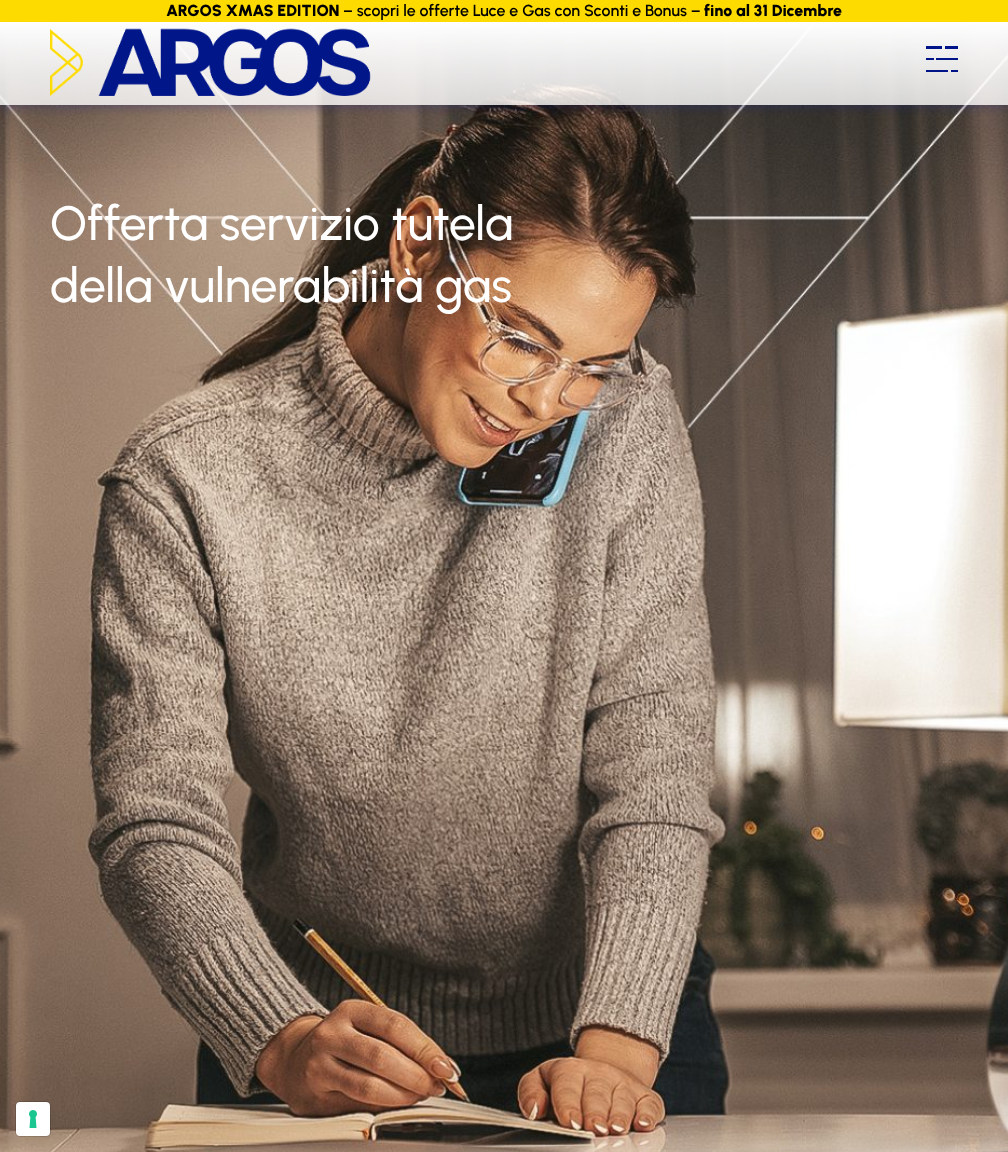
<svg xmlns="http://www.w3.org/2000/svg" width="1008" height="1152" viewBox="0 0 1008 1152">
  <defs>
    <clipPath id="clip1"><rect x="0" y="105" width="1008" height="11"/></clipPath>
  </defs>
  <rect width="100%" height="100%" fill="rgb(255,255,255)"/>
  <image x="0" y="22" width="1008" height="1130" href="pic2.png"/>
  <g clip-path="url(#clip1)">
    <rect x="0" y="21" width="1008" height="85" fill="rgba(31,38,135,0.37)" filter="blur(6px)"/>
  </g>
  <image x="50" y="28" width="321" height="68" href="pic1.png"/>
  <rect x="926" y="46" width="16" height="3" fill="rgb(0,20,137)"/>
  <rect x="945" y="46" width="13" height="3" fill="rgb(0,20,137)"/>
  <rect x="926" y="58" width="8" height="2" fill="rgb(0,20,137)"/>
  <rect x="936" y="58" width="22" height="2" fill="rgb(0,20,137)"/>
  <rect x="926" y="70" width="22" height="2" fill="rgb(0,20,137)"/>
  <rect x="951" y="70" width="7" height="2" fill="rgb(0,20,137)"/>
  <rect x="0" y="0" width="1008" height="22" fill="rgb(254,219,0)"/>
  <text x="166" y="16" font-family="Urbanist" font-size="16" font-weight="900" fill="rgb(0,0,0)">ARGOS XMAS EDITION</text>
  <text x="343" y="16" font-family="Urbanist" font-size="16" font-weight="600" fill="rgb(0,0,0)">– scopri le offerte Luce e Gas con Sconti e Bonus –</text>
  <text x="704" y="16" font-family="Urbanist" font-size="16" font-weight="900" fill="rgb(0,0,0)">fino al 31 Dicembre</text>
  <g font-family="Urbanist" font-size="48" font-weight="500" fill="rgb(255,255,255)">
    <text>
      <tspan x="50" y="240">Offerta servizio tutela</tspan>
      <tspan x="50" y="302">della vulnerabilità gas</tspan>
    </text>
  </g>
  <rect x="15.5" y="1101.5" width="35" height="35" rx="4.5" fill="none" stroke="rgba(0,0,0,0.15)"/>
  <rect x="16" y="1102" width="34" height="34" rx="4" fill="rgb(255,255,255)"/>
  <image x="29" y="1110" width="8" height="18" href="pic3.png"/>
</svg>
